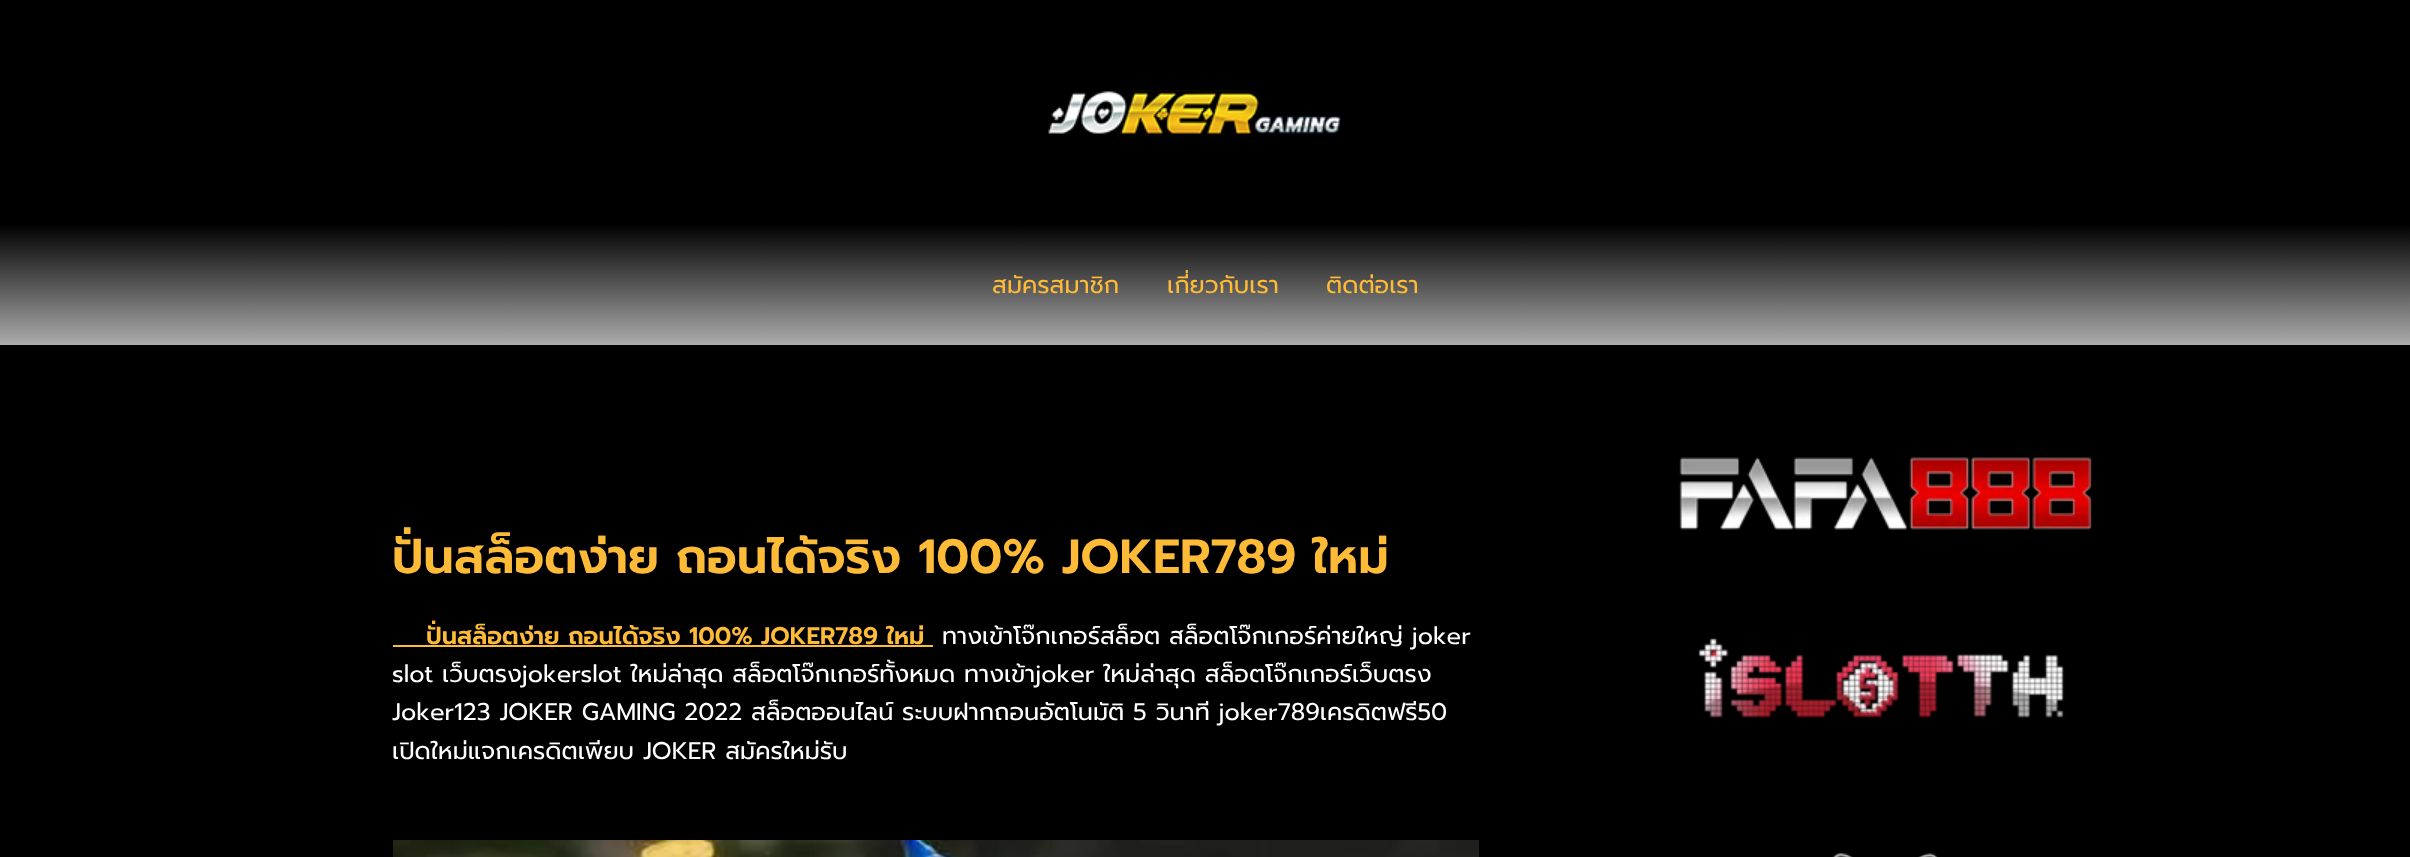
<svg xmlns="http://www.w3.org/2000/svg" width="2410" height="857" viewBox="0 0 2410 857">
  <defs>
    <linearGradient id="g1" gradientUnits="userSpaceOnUse" x1="1205" y1="225" x2="1205" y2="345"><stop offset="0" stop-color="rgb(1,1,1)"/><stop offset="1" stop-color="rgb(171,171,171)"/></linearGradient>
  </defs>
  <rect width="100%" height="100%" fill="rgb(0,0,0)"/>
  <image x="1048" y="90" width="294" height="48" href="pic1.png"/>
  <rect x="0" y="226" width="2410" height="119" fill="url(#g1)"/>
  <g font-family="Prompt" font-size="24" fill="rgb(254,187,55)">
    <text x="992" y="293">สมัครสมาชิก</text>
    <text x="1167" y="293">เกี่ยวกับเรา</text>
    <text x="1326" y="293">ติดต่อเรา</text>
  </g>
  <text x="392" y="573" font-family="Prompt" font-size="48" font-weight="600" fill="rgb(254,187,55)">ปั่นสล็อตง่าย ถอนได้จริง 100% JOKER789 ใหม่</text>
  <text x="426" y="644" font-family="Prompt" font-size="24" font-weight="600" fill="rgb(254,187,55)">ปั่นสล็อตง่าย ถอนได้จริง 100% JOKER789 ใหม่</text>
  <rect x="393" y="645" width="540" height="2" fill="rgb(254,187,55)"/>
  <g font-family="Prompt" font-size="24" fill="rgb(255,255,255)">
    <text x="942" y="644">ทางเข้าโจ๊กเกอร์สล็อต สล็อตโจ๊กเกอร์ค่ายใหญ่ joker</text>
    <text>
      <tspan x="392" y="682">slot เว็บตรงjokerslot ใหม่ล่าสุด สล็อตโจ๊กเกอร์ทั้งหมด ทางเข้าjoker ใหม่ล่าสุด สล็อตโจ๊กเกอร์เว็บตรง</tspan>
      <tspan x="392" y="720">Joker123 JOKER GAMING 2022 สล็อตออนไลน์ ระบบฝากถอนอัตโนมัติ 5 วินาที joker789เครดิตฟรี50</tspan>
      <tspan x="392" y="759">เปิดใหม่แจกเครดิตเพียบ JOKER สมัครใหม่รับ</tspan>
    </text>
  </g>
  <image x="393" y="840" width="1086" height="17" href="pic2.png"/>
  <image x="1679" y="457" width="413" height="73" href="pic3.png"/>
  <image x="1698" y="637" width="367" height="81" href="pic4.png"/>
  <image x="1832" y="852" width="106" height="5" href="pic5.png"/>
</svg>
